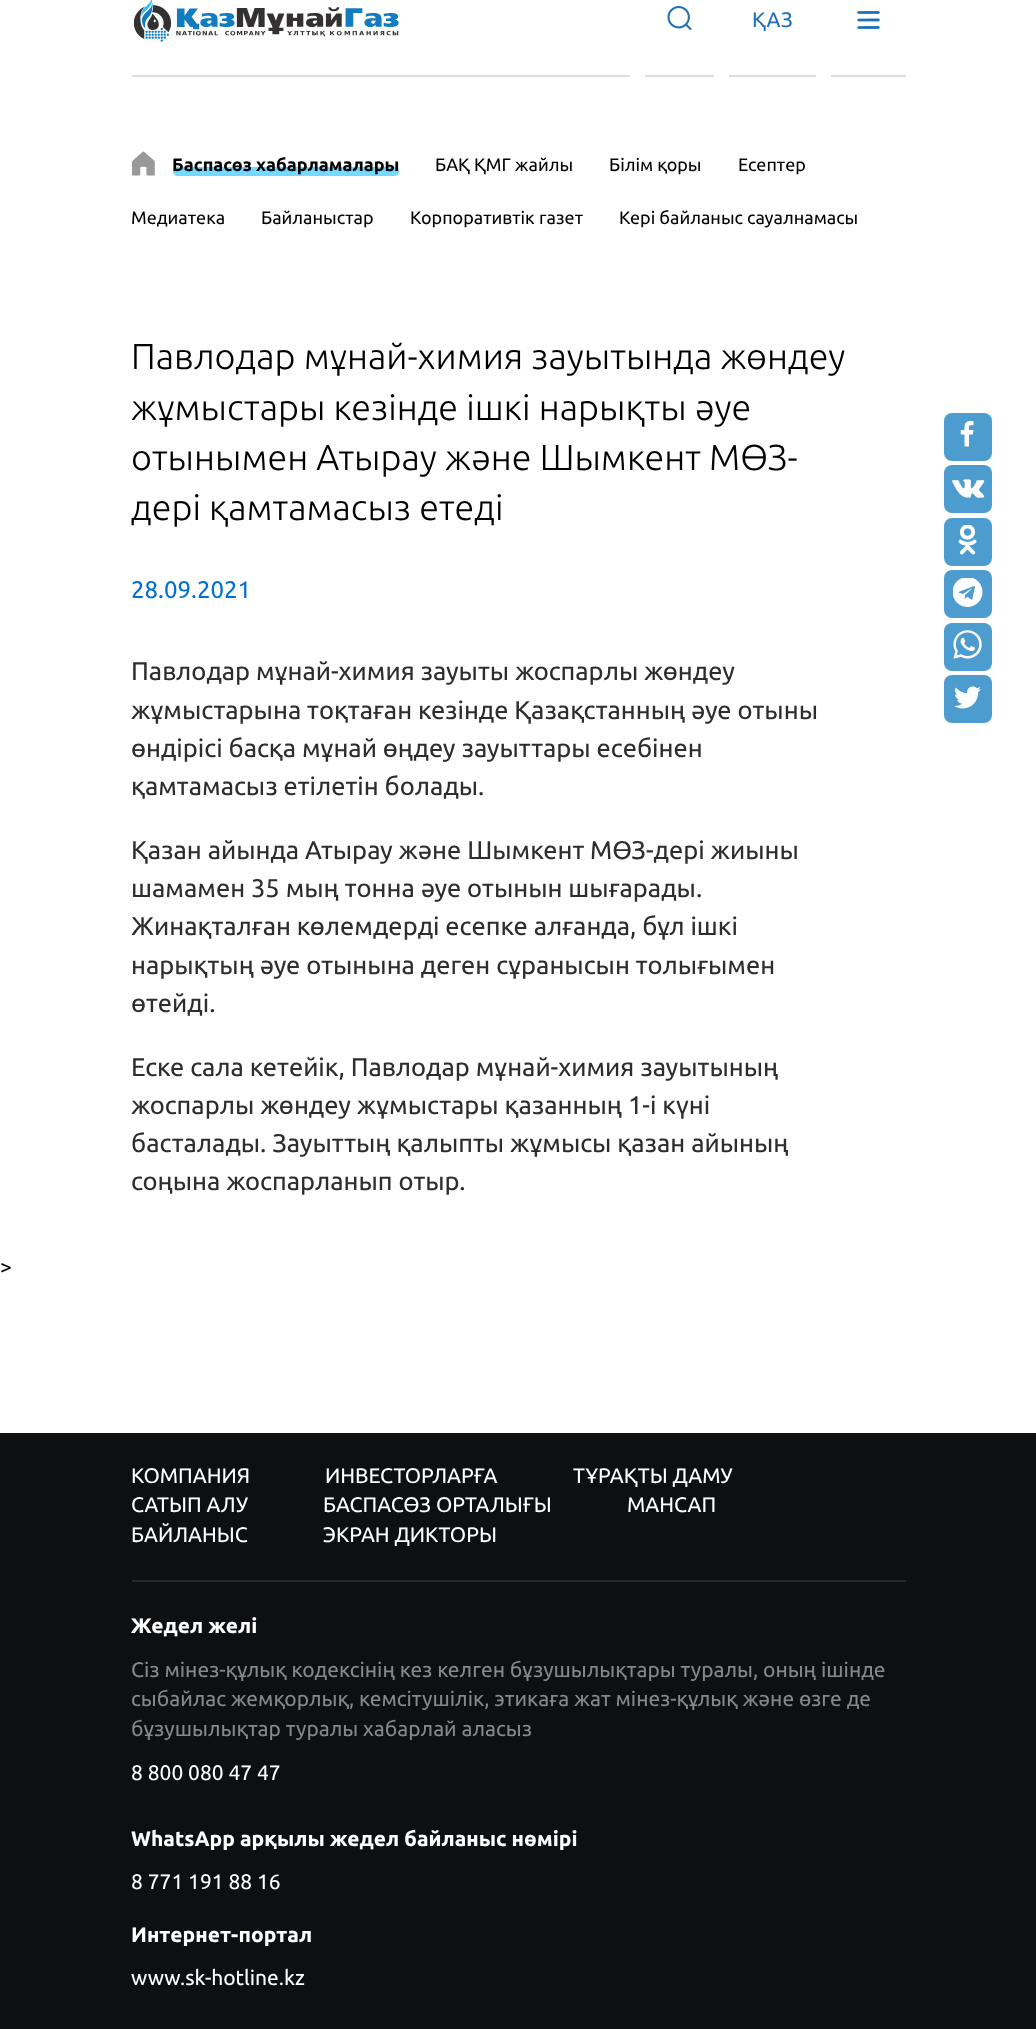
<svg xmlns="http://www.w3.org/2000/svg" width="1036" height="2029" viewBox="0 0 1036 2029">
  <rect width="100%" height="100%" fill="rgb(255,255,255)"/>
  <rect x="132" y="75" width="498" height="2" fill="rgb(221,221,221)"/>
  <image x="176" y="7" width="223" height="30" href="pic1.png"/>
  <image x="134" y="0" width="38" height="42" href="pic2.png"/>
  <rect x="645" y="75" width="69" height="2" fill="rgb(221,221,221)"/>
  <image x="667" y="6" width="25" height="24" href="pic3.png"/>
  <rect x="729" y="75" width="87" height="2" fill="rgb(221,221,221)"/>
  <text x="752" y="27" font-family="Ubuntu" font-size="21" fill="rgb(29,112,183)">ҚАЗ</text>
  <rect x="831" y="75" width="75" height="2" fill="rgb(221,221,221)"/>
  <image x="857" y="11" width="23" height="18" href="pic4.png"/>
  <image x="132" y="151" width="23" height="25" href="pic5.png"/>
  <rect x="173" y="167" width="226" height="9" rx="4.5" fill="rgb(116,217,255)"/>
  <text x="172" y="171" font-family="Ubuntu" font-size="18" font-weight="bold" fill="rgb(0,0,0)">Баспасөз хабарламалары</text>
  <g font-family="Ubuntu" font-size="18" fill="rgb(0,0,0)">
    <text x="435" y="171">БАҚ ҚМГ жайлы</text>
    <text x="609" y="171">Білім қоры</text>
    <text x="738" y="171">Есептер</text>
    <text x="131" y="224">Медиатека</text>
    <text x="261" y="224">Байланыстар</text>
    <text x="410" y="224">Корпоративтік газет</text>
    <text x="619" y="224">Кері байланыс сауалнамасы</text>
  </g>
  <g font-family="Ubuntu" font-size="36" font-weight="300" fill="rgb(0,0,0)">
    <text>
      <tspan x="131" y="369">Павлодар мұнай-химия зауытында жөндеу</tspan>
      <tspan x="131" y="420">жұмыстары кезінде ішкі нарықты әуе</tspan>
      <tspan x="131" y="470">отынымен Атырау және Шымкент МӨЗ-</tspan>
      <tspan x="131" y="520">дері қамтамасыз етеді</tspan>
    </text>
  </g>
  <text x="131" y="598" font-family="Ubuntu" font-size="24" fill="rgb(0,111,213)">28.09.2021</text>
  <g font-family="Ubuntu" font-size="25.5" fill="rgb(45,45,45)">
    <text>
      <tspan x="131" y="680">Павлодар мұнай-химия зауыты жоспарлы жөндеу</tspan>
      <tspan x="131" y="719">жұмыстарына тоқтаған кезінде Қазақстанның әуе отыны</tspan>
      <tspan x="131" y="757">өндірісі басқа мұнай өңдеу зауыттары есебінен</tspan>
      <tspan x="131" y="795">қамтамасыз етілетін болады.</tspan>
    </text>
    <text>
      <tspan x="131" y="859">Қазан айында Атырау және Шымкент МӨЗ-дері жиыны</tspan>
      <tspan x="131" y="897">шамамен 35 мың тонна әуе отынын шығарады.</tspan>
      <tspan x="131" y="935">Жинақталған көлемдерді есепке алғанда, бұл ішкі</tspan>
      <tspan x="131" y="974">нарықтың әуе отынына деген сұранысын толығымен</tspan>
      <tspan x="131" y="1012">өтейді.</tspan>
    </text>
    <text>
      <tspan x="131" y="1076">Еске сала кетейік, Павлодар мұнай-химия зауытының</tspan>
      <tspan x="131" y="1114">жоспарлы жөндеу жұмыстары қазанның 1-і күні</tspan>
      <tspan x="131" y="1152">басталады. Зауыттың қалыпты жұмысы қазан айының</tspan>
      <tspan x="131" y="1190">соңына жоспарланып отыр.</tspan>
    </text>
  </g>
  <rect x="944" y="413" width="48" height="48" rx="8" fill="rgb(77,156,208)"/>
  <image x="960" y="421" width="14" height="26" href="pic6.png"/>
  <rect x="944" y="465" width="48" height="48" rx="8" fill="rgb(77,156,208)"/>
  <image x="952" y="479" width="33" height="19" href="pic7.png"/>
  <rect x="944" y="518" width="48" height="48" rx="8" fill="rgb(77,156,208)"/>
  <image x="958" y="525" width="19" height="30" href="pic8.png"/>
  <rect x="944" y="570" width="48" height="48" rx="8" fill="rgb(77,156,208)"/>
  <image x="953" y="578" width="30" height="29" href="pic9.png"/>
  <rect x="944" y="623" width="48" height="48" rx="8" fill="rgb(77,156,208)"/>
  <image x="953" y="630" width="29" height="29" href="pic10.png"/>
  <rect x="944" y="675" width="48" height="48" rx="8" fill="rgb(77,156,208)"/>
  <image x="954" y="686" width="27" height="23" href="pic11.png"/>
  <text x="0" y="1274" font-family="Ubuntu" font-size="21" fill="rgb(0,0,0)">&gt;</text>
  <rect x="0" y="1433" width="1036" height="596" fill="rgb(14,15,17)"/>
  <rect x="132" y="1580" width="774" height="2" fill="rgb(38,39,41)"/>
  <g font-family="Ubuntu" font-size="21" fill="rgb(255,255,255)">
    <text x="131" y="1483">КОМПАНИЯ</text>
    <text x="325" y="1483">ИНВЕСТОРЛАРҒА</text>
    <text x="573" y="1483">ТҰРАҚТЫ ДАМУ</text>
    <text x="131" y="1512">САТЫП АЛУ</text>
    <text x="323" y="1512">БАСПАСӨЗ ОРТАЛЫҒЫ</text>
    <text x="627" y="1512">МАНСАП</text>
    <text x="131" y="1542">БАЙЛАНЫС</text>
    <text x="323" y="1542">ЭКРАН ДИКТОРЫ</text>
  </g>
  <text x="131" y="1633" font-family="Ubuntu" font-size="21" font-weight="bold" fill="rgb(255,255,255)">Жедел желі</text>
  <g font-family="Ubuntu" font-size="21" fill="rgb(135,135,136)">
    <text>
      <tspan x="131" y="1677">Сіз мінез-құлық кодексінің кез келген бұзушылықтары туралы, оның ішінде</tspan>
      <tspan x="131" y="1706">сыбайлас жемқорлық, кемсітушілік, этикаға жат мінез-құлық және өзге де</tspan>
      <tspan x="131" y="1736">бұзушылықтар туралы хабарлай аласыз</tspan>
    </text>
  </g>
  <text x="131" y="1780" font-family="Ubuntu" font-size="21" fill="rgb(255,255,255)">8 800 080 47 47</text>
  <text x="131" y="1846" font-family="Ubuntu" font-size="21" font-weight="bold" fill="rgb(255,255,255)">WhatsApp арқылы жедел байланыс нөмірі</text>
  <text x="131" y="1889" font-family="Ubuntu" font-size="21" fill="rgb(255,255,255)">8 771 191 88 16</text>
  <text x="131" y="1942" font-family="Ubuntu" font-size="21" font-weight="bold" fill="rgb(255,255,255)">Интернет-портал</text>
  <text x="131" y="1985" font-family="Ubuntu" font-size="21" fill="rgb(255,255,255)">www.sk-hotline.kz</text>
</svg>
